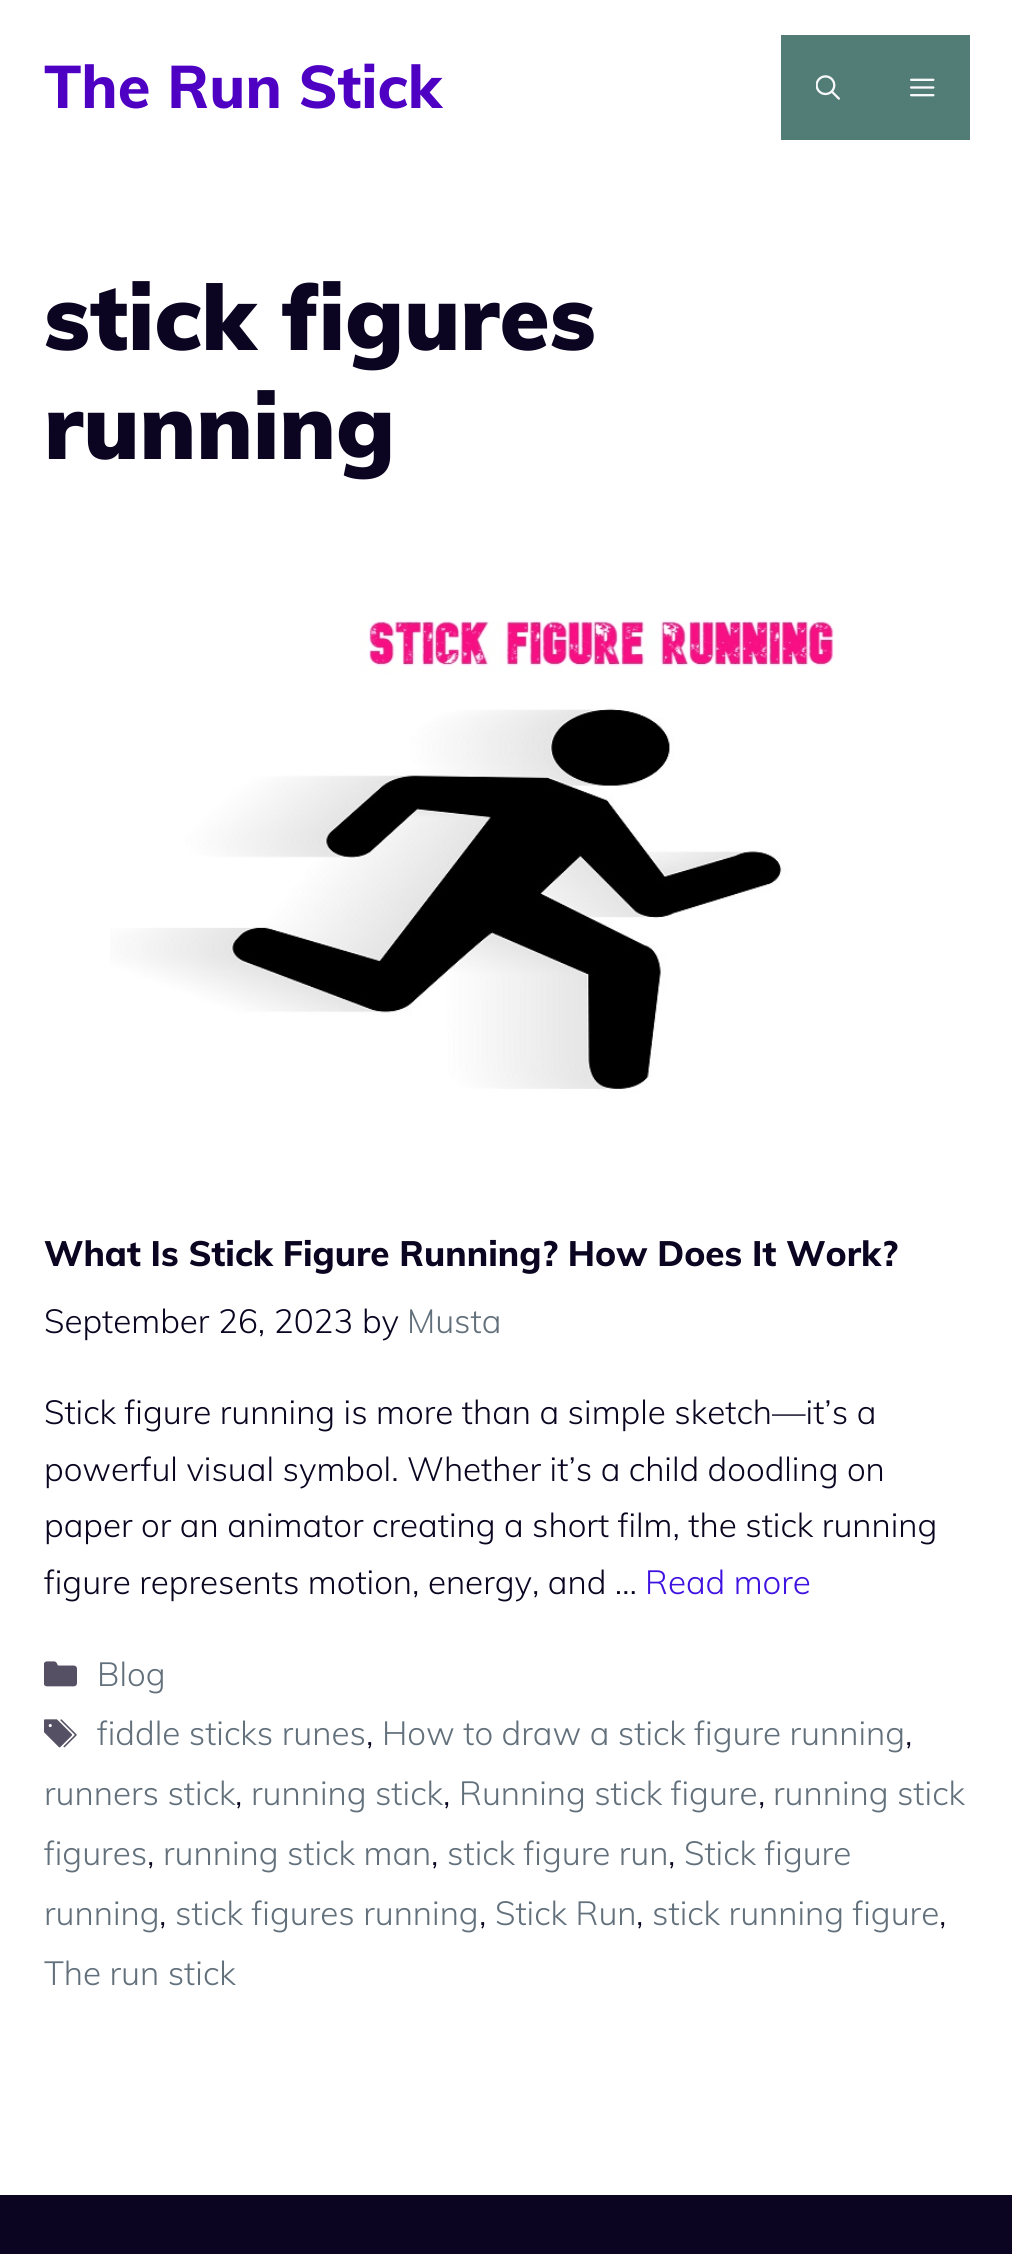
import math
import cairocffi as cairo

surface = cairo.ImageSurface(cairo.FORMAT_RGB24, 1012, 2254)
cr = cairo.Context(surface)
options = cairo.FontOptions()
options.set_hint_metrics(cairo.HINT_METRICS_OFF)
options.set_hint_style(cairo.HINT_STYLE_NONE)
cr.set_font_options(options)
cr.set_miter_limit(4)


def use_color(code):
    cr.set_source_rgb(*(v / 255 for v in bytes.fromhex(code[-6:])))


def picture(path, x, y, w, h):
    cr.save()
    cr.set_source_surface(cairo.ImageSurface.create_from_png(path), x, y)
    cr.rectangle(x, y, w, h)
    cr.fill()
    cr.restore()


use_color("#ffffff")
cr.paint()
cr.select_font_face("Muli ExtraBold")
cr.set_font_size(59.5)
use_color("#4e01c2")
cr.move_to(44, 108)
cr.show_text("The Run Stick")
use_color("#527d76")
cr.rectangle(781, 35, 189, 105)
cr.fill()
picture("img1.png", 816, 75, 24, 25)
picture("img2.png", 910, 78, 25, 19)
cr.select_font_face("Muli Black")
cr.set_font_size(91)
use_color("#0b0521")
cr.move_to(44, 350)
cr.show_text("stick figures")
cr.move_to(44, 459)
cr.show_text("running")
picture("img3.png", 110, 620, 724, 473)
cr.select_font_face("Muli ExtraBold")
cr.set_font_size(35)
cr.move_to(44, 1266)
cr.show_text("What Is Stick Figure Running? How Does It Work?")
cr.select_font_face("Muli Light")
cr.set_font_size(33.25)
cr.move_to(44, 1333)
cr.show_text("September 26, 2023 by")
use_color("#62707c")
cr.move_to(407, 1333)
cr.show_text("Musta")
use_color("#0b0521")
cr.move_to(44, 1424)
cr.show_text("Stick figure running is more than a simple sketch—it’s a")
cr.move_to(44, 1481)
cr.show_text("powerful visual symbol. Whether it’s a child doodling on")
cr.move_to(44, 1537)
cr.show_text("paper or an animator creating a short film, the stick running")
cr.move_to(44, 1594)
cr.show_text("figure represents motion, energy, and …")
use_color("#3e11e1")
cr.move_to(645, 1594)
cr.show_text("Read more")
picture("img4.png", 44, 1661, 33, 26)
use_color("#62707c")
cr.move_to(97, 1686)
cr.show_text("Blog")
picture("img5.png", 44, 1719, 33, 29)
cr.move_to(97, 1745)
cr.show_text("fiddle sticks runes")
use_color("#0b0521")
cr.move_to(366, 1745)
cr.show_text(",")
use_color("#62707c")
cr.move_to(382, 1745)
cr.show_text("How to draw a stick figure running")
use_color("#0b0521")
cr.move_to(905, 1745)
cr.show_text(",")
use_color("#62707c")
cr.move_to(44, 1805)
cr.show_text("runners stick")
use_color("#0b0521")
cr.move_to(235, 1805)
cr.show_text(",")
use_color("#62707c")
cr.move_to(251, 1805)
cr.show_text("running stick")
use_color("#0b0521")
cr.move_to(443, 1805)
cr.show_text(",")
use_color("#62707c")
cr.move_to(459, 1805)
cr.show_text("Running stick figure")
use_color("#0b0521")
cr.move_to(758, 1805)
cr.show_text(",")
use_color("#62707c")
cr.move_to(773, 1805)
cr.show_text("running stick")
cr.move_to(44, 1865)
cr.show_text("figures")
use_color("#0b0521")
cr.move_to(147, 1865)
cr.show_text(",")
use_color("#62707c")
cr.move_to(163, 1865)
cr.show_text("running stick man")
use_color("#0b0521")
cr.move_to(431, 1865)
cr.show_text(",")
use_color("#62707c")
cr.move_to(447, 1865)
cr.show_text("stick figure run")
use_color("#0b0521")
cr.move_to(668, 1865)
cr.show_text(",")
use_color("#62707c")
cr.move_to(684, 1865)
cr.show_text("Stick figure")
cr.move_to(44, 1925)
cr.show_text("running")
use_color("#0b0521")
cr.move_to(159, 1925)
cr.show_text(",")
use_color("#62707c")
cr.move_to(175, 1925)
cr.show_text("stick figures running")
use_color("#0b0521")
cr.move_to(479, 1925)
cr.show_text(",")
use_color("#62707c")
cr.move_to(495, 1925)
cr.show_text("Stick Run")
use_color("#0b0521")
cr.move_to(636, 1925)
cr.show_text(",")
use_color("#62707c")
cr.move_to(652, 1925)
cr.show_text("stick running figure")
use_color("#0b0521")
cr.move_to(939, 1925)
cr.show_text(",")
use_color("#62707c")
cr.move_to(44, 1985)
cr.show_text("The run stick")
use_color("#0b0521")
cr.rectangle(0, 2195, 1012, 59)
cr.fill()
surface.write_to_png("result.png")
